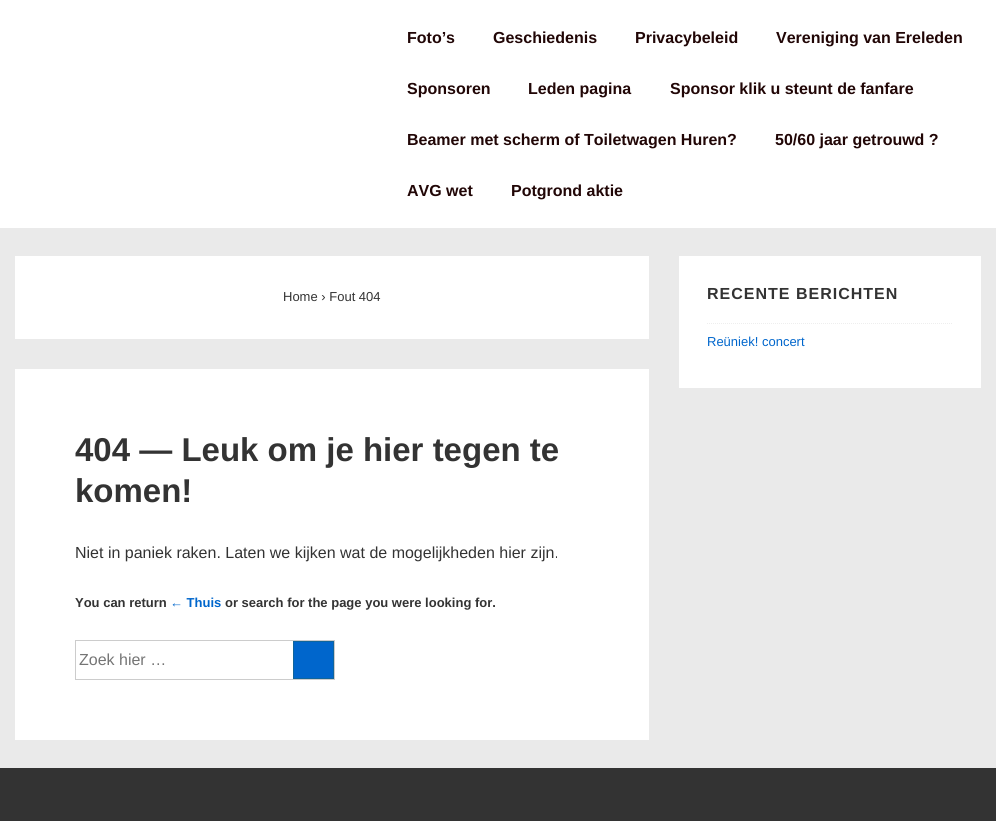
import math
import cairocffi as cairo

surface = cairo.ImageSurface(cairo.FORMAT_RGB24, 996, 821)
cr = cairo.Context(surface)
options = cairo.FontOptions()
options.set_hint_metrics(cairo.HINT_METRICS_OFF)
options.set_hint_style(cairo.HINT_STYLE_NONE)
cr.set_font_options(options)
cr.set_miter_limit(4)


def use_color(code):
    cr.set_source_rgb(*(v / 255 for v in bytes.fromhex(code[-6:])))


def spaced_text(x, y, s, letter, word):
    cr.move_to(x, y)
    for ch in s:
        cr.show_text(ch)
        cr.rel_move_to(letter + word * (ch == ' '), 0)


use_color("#eaeaea")
cr.paint()
use_color("#ffffff")
cr.rectangle(0, 0, 996, 228)
cr.fill()
cr.select_font_face("Liberation Sans", cairo.FONT_SLANT_NORMAL, cairo.FONT_WEIGHT_BOLD)
cr.set_font_size(16)
use_color("#210606")
cr.move_to(407, 43)
cr.show_text("Foto’s")
cr.move_to(493, 43)
cr.show_text("Geschiedenis")
cr.move_to(635, 43)
cr.show_text("Privacybeleid")
cr.move_to(776, 43)
cr.show_text("Vereniging van Ereleden")
cr.move_to(407, 94)
cr.show_text("Sponsoren")
cr.move_to(528, 94)
cr.show_text("Leden pagina")
cr.move_to(670, 94)
cr.show_text("Sponsor klik u steunt de fanfare")
cr.move_to(407, 145)
cr.show_text("Beamer met scherm of Toiletwagen Huren?")
cr.move_to(775, 145)
cr.show_text("50/60 jaar getrouwd ?")
cr.move_to(407, 196)
cr.show_text("AVG wet")
cr.move_to(511, 196)
cr.show_text("Potgrond aktie")
use_color("#ffffff")
cr.rectangle(15, 256, 634, 83)
cr.fill()
cr.select_font_face("Liberation Sans")
cr.set_font_size(13)
use_color("#333333")
cr.move_to(283, 301)
cr.show_text("Home › Fout 404")
use_color("#ffffff")
cr.rectangle(15, 369, 634, 371)
cr.fill()
cr.select_font_face("Liberation Sans", cairo.FONT_SLANT_NORMAL, cairo.FONT_WEIGHT_BOLD)
cr.set_font_size(33)
use_color("#333333")
cr.move_to(75, 461)
cr.show_text("404 — Leuk om je hier tegen te")
cr.move_to(75, 502)
cr.show_text("komen!")
cr.select_font_face("Liberation Sans")
cr.set_font_size(16)
cr.move_to(75, 558)
cr.show_text("Niet in paniek raken. Laten we kijken wat de mogelijkheden hier zijn.")
cr.select_font_face("Liberation Sans", cairo.FONT_SLANT_NORMAL, cairo.FONT_WEIGHT_BOLD)
cr.set_font_size(13)
cr.move_to(75, 607)
cr.show_text("You can return")
use_color("#0066cc")
cr.move_to(170, 607)
cr.show_text("← Thuis")
use_color("#333333")
cr.move_to(225, 607)
cr.show_text("or search for the page you were looking for.")
cr.rectangle(75.5, 640.5, 259, 39)
use_color("#cccccc")
cr.set_line_width(1)
cr.stroke()
cr.select_font_face("Liberation Sans")
cr.set_font_size(16)
use_color("#757575")
cr.move_to(79, 665)
cr.show_text("Zoek hier …")
use_color("#0066cc")
cr.rectangle(293.5, 641.5, 40, 37)
cr.fill_preserve()
use_color("#10659c")
cr.stroke()
use_color("#ffffff")
cr.rectangle(679, 256, 302, 132)
cr.fill()
cr.select_font_face("Liberation Sans", cairo.FONT_SLANT_NORMAL, cairo.FONT_WEIGHT_BOLD)
use_color("#333333")
spaced_text(707, 299, "RECENTE BERICHTEN", 1, 0)
cr.new_path()
cr.move_to(707, 323.5)
cr.line_to(953, 323.5)
use_color("#eeeeee")
cr.set_dash([1, 1])
cr.stroke()
cr.select_font_face("Liberation Sans")
cr.set_font_size(13)
use_color("#0066cc")
cr.move_to(707, 346)
cr.show_text("Reüniek! concert")
use_color("#333333")
cr.rectangle(0, 768, 996, 53)
cr.fill()
surface.write_to_png("result.png")
